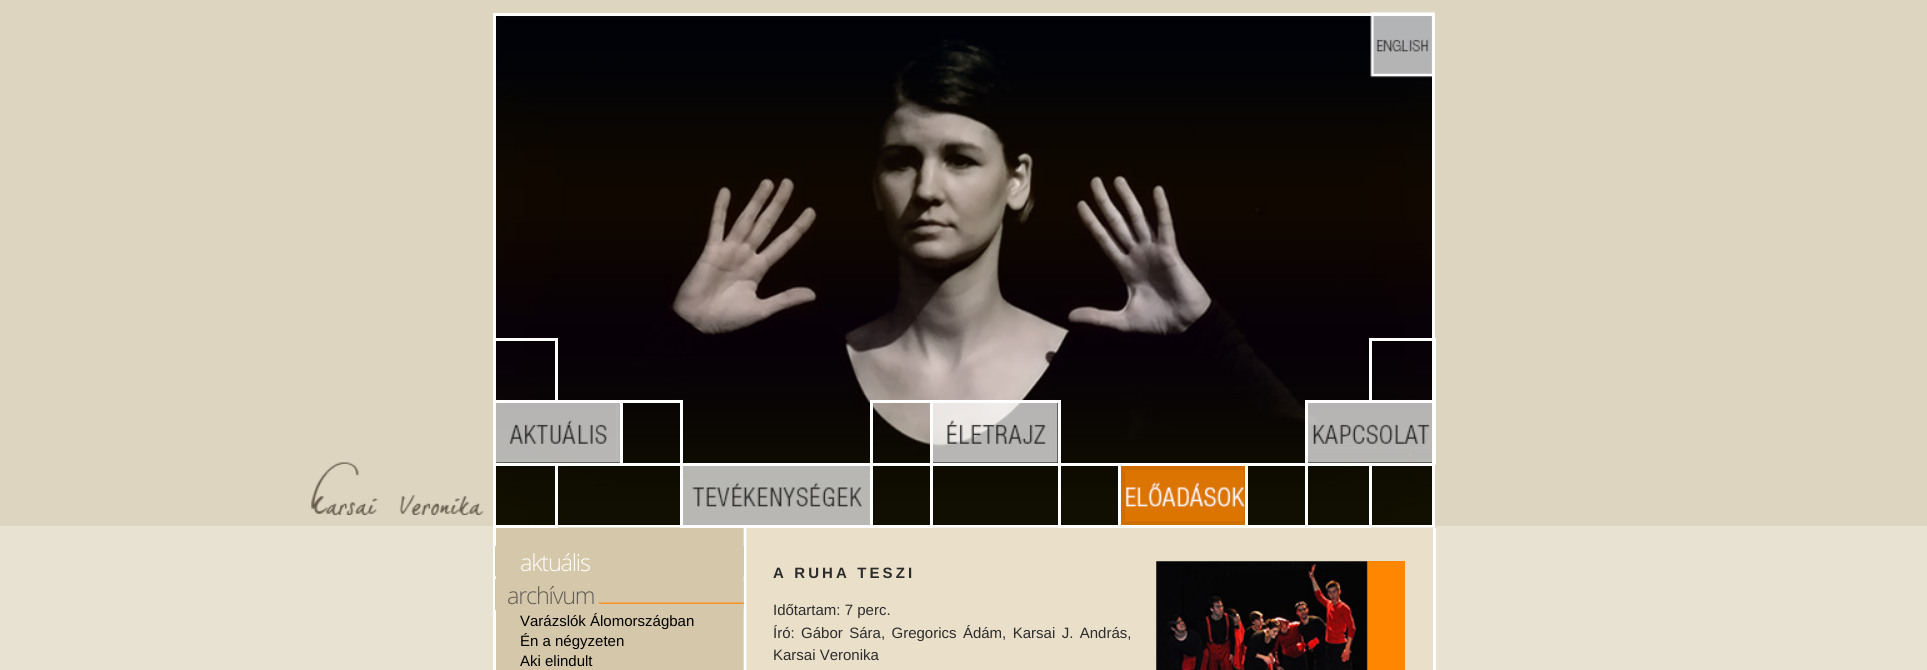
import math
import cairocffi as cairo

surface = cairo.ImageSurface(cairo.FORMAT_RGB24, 1927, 670)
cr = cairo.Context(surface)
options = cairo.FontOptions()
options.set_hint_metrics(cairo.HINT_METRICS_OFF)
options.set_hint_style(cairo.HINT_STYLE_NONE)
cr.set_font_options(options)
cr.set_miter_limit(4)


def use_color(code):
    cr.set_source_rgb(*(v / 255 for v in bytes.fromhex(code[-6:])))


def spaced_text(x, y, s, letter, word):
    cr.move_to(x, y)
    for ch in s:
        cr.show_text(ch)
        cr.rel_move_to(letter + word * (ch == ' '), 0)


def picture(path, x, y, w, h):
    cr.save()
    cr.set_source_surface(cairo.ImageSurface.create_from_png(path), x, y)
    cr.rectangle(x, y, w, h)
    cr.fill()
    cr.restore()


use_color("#e8e2d2")
cr.paint()
use_color("#ddd5c0")
cr.rectangle(0, 0, 1927, 526)
cr.fill()
picture("img1.png", 496, 16, 936, 509)
cr.rectangle(494.5, 14.5, 939, 512)
use_color("#ffffff")
cr.set_line_width(3)
cr.stroke()
picture("img2.png", 1370, 11, 65, 67)
picture("img3.png", 311, 462, 173, 53)
cr.rectangle(620, 400, 63, 3)
cr.fill()
cr.rectangle(870, 463, 63, 3)
cr.fill()
picture("img9.png", 496, 527, 939, 143)
cr.rectangle(930, 463, 3, 65)
cr.fill()
cr.rectangle(870, 527, 63, 1)
cr.fill()
cr.rectangle(870, 463, 3, 65)
cr.fill()
cr.rectangle(680, 463, 193, 3)
cr.fill()
cr.rectangle(680, 527, 193, 1)
cr.fill()
cr.rectangle(680, 463, 3, 65)
cr.fill()
cr.rectangle(680, 400, 3, 65)
cr.fill()
cr.rectangle(620, 463, 63, 3)
cr.fill()
cr.rectangle(620, 400, 3, 65)
cr.fill()
cr.rectangle(493, 400, 130, 3)
cr.fill()
cr.rectangle(555, 463, 3, 65)
cr.fill()
cr.rectangle(493, 463, 130, 3)
cr.fill()
picture("img4.png", 496, 403, 124, 60)
cr.rectangle(930, 400, 130, 3)
cr.fill()
cr.rectangle(1369, 463, 3, 65)
cr.fill()
cr.rectangle(1305, 527, 66, 1)
cr.fill()
cr.rectangle(1305, 463, 3, 65)
cr.fill()
cr.rectangle(1245, 463, 190, 3)
cr.fill()
cr.rectangle(1245, 527, 63, 1)
cr.fill()
cr.rectangle(1245, 463, 3, 65)
cr.fill()
cr.rectangle(1118, 463, 130, 3)
cr.fill()
cr.rectangle(1118, 527, 130, 1)
cr.fill()
cr.rectangle(1118, 463, 3, 65)
cr.fill()
cr.rectangle(1058, 463, 62, 3)
cr.fill()
cr.rectangle(1058, 527, 62, 1)
cr.fill()
cr.rectangle(1058, 463, 3, 65)
cr.fill()
cr.rectangle(1058, 400, 3, 65)
cr.fill()
cr.rectangle(930, 463, 130, 3)
cr.fill()
cr.rectangle(930, 400, 3, 65)
cr.fill()
cr.rectangle(870, 400, 63, 3)
cr.fill()
cr.rectangle(870, 400, 3, 65)
cr.fill()
picture("img5.png", 933, 403, 125, 60)
cr.rectangle(1305, 400, 130, 3)
cr.fill()
cr.rectangle(1435, 338, 1, 127)
cr.fill()
cr.rectangle(1305, 400, 3, 65)
cr.fill()
picture("img6.png", 1308, 403, 124, 60)
cr.rectangle(493, 338, 65, 3)
cr.fill()
cr.rectangle(555, 338, 3, 65)
cr.fill()
cr.rectangle(1369, 338, 66, 3)
cr.fill()
cr.rectangle(1369, 338, 3, 65)
cr.fill()
cr.rectangle(493, 527, 65, 1)
cr.fill()
picture("img7.png", 683, 466, 187, 59)
picture("img8.png", 1121, 466, 124, 59)
cr.rectangle(1433, 528, 3, 142)
cr.fill()
cr.rectangle(493, 528, 3, 142)
cr.fill()
picture("img10.png", 495, 576, 249, 1)
use_color("#d5c7aa")
cr.rectangle(495, 546, 249, 30)
cr.fill()
cr.select_font_face("Open Sans Light")
cr.set_font_size(23.5)
use_color("#ffffff")
spaced_text(520, 571, "aktuális", -1.25, 0)
picture("img11.png", 599, 581, 145, 28)
use_color("#5e5b56")
spaced_text(507, 604, "archívum", -1.25, 0)
use_color("#d5c7aa")
cr.rectangle(495, 579, 1, 31)
cr.fill()
cr.select_font_face("Liberation Sans")
cr.set_font_size(15)
use_color("#000000")
cr.move_to(520, 626)
cr.show_text("Varázslók Álomországban")
cr.move_to(520, 646)
cr.show_text("Én a négyzeten")
cr.move_to(520, 666)
cr.show_text("Aki elindult")
cr.select_font_face("Liberation Sans", cairo.FONT_SLANT_NORMAL, cairo.FONT_WEIGHT_BOLD)
use_color("#2c2c2c")
spaced_text(773, 578, "A RUHA TESZI", 3.1, 0)
picture("img12.png", 1156, 561, 212, 109)
use_color("#ff8600")
cr.rectangle(1368, 561, 37, 109)
cr.fill()
cr.select_font_face("Liberation Sans")
use_color("#2c2c2c")
cr.move_to(773, 615)
cr.show_text("Időtartam: 7 perc.")
spaced_text(773, 638, "Író: Gábor Sára, Gregorics Ádám, Karsai J. András,", 0, 2.25)
cr.move_to(773, 660)
cr.show_text("Karsai Veronika")
surface.write_to_png("result.png")
